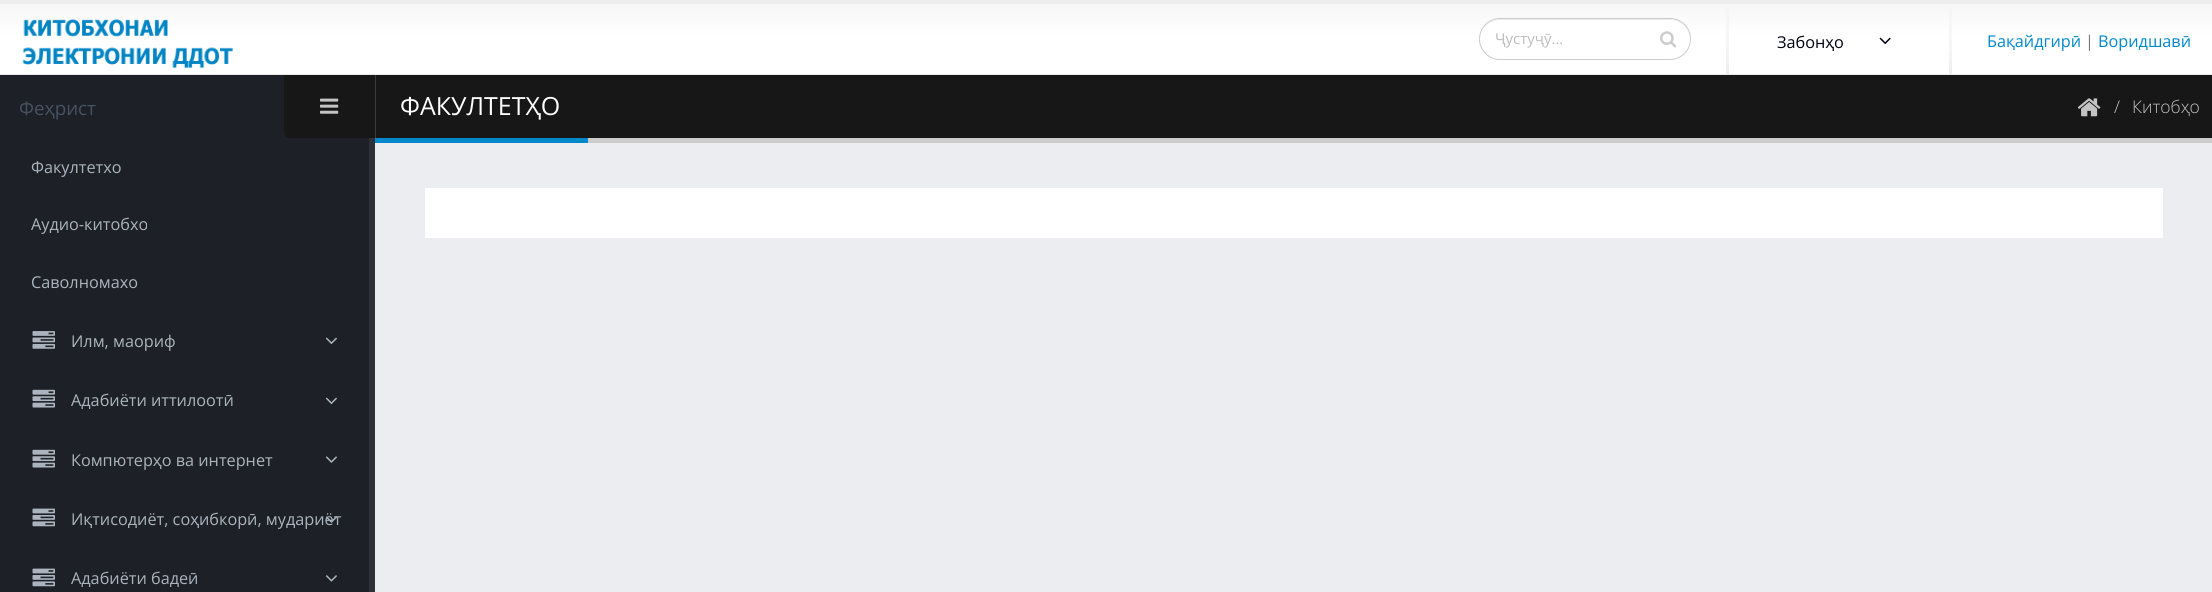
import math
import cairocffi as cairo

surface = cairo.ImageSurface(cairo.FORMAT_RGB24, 2212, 592)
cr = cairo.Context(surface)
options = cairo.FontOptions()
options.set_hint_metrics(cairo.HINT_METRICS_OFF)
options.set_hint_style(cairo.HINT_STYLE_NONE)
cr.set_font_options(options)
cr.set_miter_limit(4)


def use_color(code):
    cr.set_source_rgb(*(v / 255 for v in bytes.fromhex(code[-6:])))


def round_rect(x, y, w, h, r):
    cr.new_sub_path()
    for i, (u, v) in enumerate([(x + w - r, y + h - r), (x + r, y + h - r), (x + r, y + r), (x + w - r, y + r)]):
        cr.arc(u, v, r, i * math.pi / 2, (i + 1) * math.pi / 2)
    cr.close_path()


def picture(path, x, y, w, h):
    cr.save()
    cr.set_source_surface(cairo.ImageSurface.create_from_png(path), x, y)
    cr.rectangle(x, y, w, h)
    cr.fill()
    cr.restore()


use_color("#ecedf0")
cr.paint()
gradient = cairo.LinearGradient(1106, 3.7, 1106, 74)
gradient.add_color_stop_rgba(0, 0.965, 0.965, 0.965, 1)
gradient.add_color_stop_rgba(0.45, 1, 1, 1, 1)
cr.set_source(gradient)
cr.rectangle(0, 4, 2212, 70)
cr.fill()
use_color("#ededed")
cr.rectangle(0, 0, 2212, 4)
cr.fill()
use_color("#e9e9e6")
cr.rectangle(0, 74, 2212, 1)
cr.fill()
picture("img1.png", 22, 19, 211, 49)
use_color("#ffffff")
round_rect(1479, 18, 212, 42, 21)
cr.fill()
use_color("#ececec")
cr.new_path()
cr.move_to(1500, 20)
cr.line_to(1670, 20)
cr.curve_to(1681, 20, 1690, 29, 1690, 40)
cr.line_to(1690, 39)
cr.curve_to(1690, 28, 1681, 19, 1670, 19)
cr.line_to(1500, 19)
cr.curve_to(1489, 19, 1480, 28, 1480, 39)
cr.line_to(1480, 40)
cr.curve_to(1480, 29, 1489, 20, 1500, 20)
cr.close_path()
cr.fill()
round_rect(1479.5, 18.5, 211, 41, 20.5)
use_color("#cccccc")
cr.set_line_width(1)
cr.stroke()
cr.select_font_face("Open Sans")
cr.set_font_size(15)
use_color("#bdbdbd")
cr.move_to(1495, 44)
cr.show_text("Ҷустуҷӯ...")
picture("img2.png", 1660, 31, 17, 17)
gradient = cairo.LinearGradient(1728, 3.8, 1728, 74)
gradient.add_color_stop_rgba(0.6, 0.965, 0.965, 0.965, 1)
gradient.add_color_stop_rgba(1, 0.929, 0.929, 0.929, 1)
cr.set_source(gradient)
cr.rectangle(1726, 4, 3, 70)
cr.fill()
cr.set_font_size(16.25)
use_color("#000011")
cr.move_to(1777, 48)
cr.show_text("Забонҳо")
picture("img3.png", 1879, 37, 12, 8)
gradient = cairo.LinearGradient(1950, 3.8, 1950, 74)
gradient.add_color_stop_rgba(0.6, 0.965, 0.965, 0.965, 1)
gradient.add_color_stop_rgba(1, 0.929, 0.929, 0.929, 1)
cr.set_source(gradient)
cr.rectangle(1949, 4, 3, 70)
cr.fill()
use_color("#0088cc")
cr.move_to(1987, 47)
cr.show_text("Бақайдгирӣ")
use_color("#777777")
cr.move_to(2085, 47)
cr.show_text("|")
use_color("#0088cc")
cr.move_to(2098, 47)
cr.show_text("Воридшавӣ")
use_color("#1d2127")
cr.rectangle(0, 75, 369, 517)
cr.fill()
use_color("#2f3139")
cr.rectangle(369, 138, 6, 454)
cr.fill()
cr.set_font_size(18.75)
use_color("#465162")
cr.move_to(19, 115)
cr.show_text("Феҳрист")
use_color("#171717")
cr.new_path()
cr.move_to(284, 75)
cr.line_to(375, 75)
cr.line_to(375, 138)
cr.line_to(290, 138)
cr.curve_to(286.5, 138, 284, 135.5, 284, 132)
cr.close_path()
cr.fill()
picture("img4.png", 320, 98, 19, 16)
cr.set_font_size(16.25)
use_color("#abb4be")
cr.move_to(31, 173)
cr.show_text("Факултетхо")
cr.move_to(31, 230)
cr.show_text("Аудио-китобхо")
cr.move_to(31, 288)
cr.show_text("Саволномахо")
picture("img5.png", 32, 331, 23, 18)
cr.move_to(71, 347)
cr.show_text("Илм, маориф")
picture("img6.png", 325, 337, 12, 8)
picture("img7.png", 32, 389, 23, 19)
cr.move_to(71, 406)
cr.show_text("Адабиёти иттилоотӣ")
picture("img6.png", 325, 397, 12, 8)
picture("img7.png", 32, 449, 23, 19)
cr.move_to(71, 466)
cr.show_text("Компютерҳо ва интернет")
picture("img8.png", 325, 456, 12, 7)
picture("img9.png", 32, 508, 23, 19)
cr.move_to(71, 525)
cr.show_text("Иқтисодиёт, соҳибкорӣ, мудариёт")
picture("img10.png", 325, 516, 12, 7)
picture("img9.png", 32, 568, 23, 19)
cr.move_to(71, 584)
cr.show_text("Адабиёти бадеӣ")
picture("img11.png", 325, 575, 12, 7)
use_color("#cccccc")
cr.new_path()
cr.move_to(375, 138)
cr.line_to(375, 143)
cr.line_to(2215, 143)
cr.line_to(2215, 78)
cr.line_to(2212, 78)
cr.line_to(2212, 138)
cr.close_path()
cr.fill()
use_color("#171717")
cr.rectangle(376, 75, 1836, 63)
cr.fill()
use_color("#3a3a3a")
cr.rectangle(375, 75, 1, 63)
cr.fill()
use_color("#0088cc")
cr.rectangle(375, 138, 213, 5)
cr.fill()
cr.set_font_size(25)
use_color("#ffffff")
cr.move_to(400, 115)
cr.show_text("ФАКУЛТЕТҲО")
picture("img12.png", 2077, 98, 24, 19)
cr.select_font_face("Open Sans Light")
cr.set_font_size(17.5)
use_color("#c3c3c3")
cr.move_to(2114, 113)
cr.show_text("/")
cr.move_to(2132, 113)
cr.show_text("Китобҳо")
use_color("#ffffff")
cr.rectangle(425, 188, 1738, 50)
cr.fill()
surface.write_to_png("result.png")
